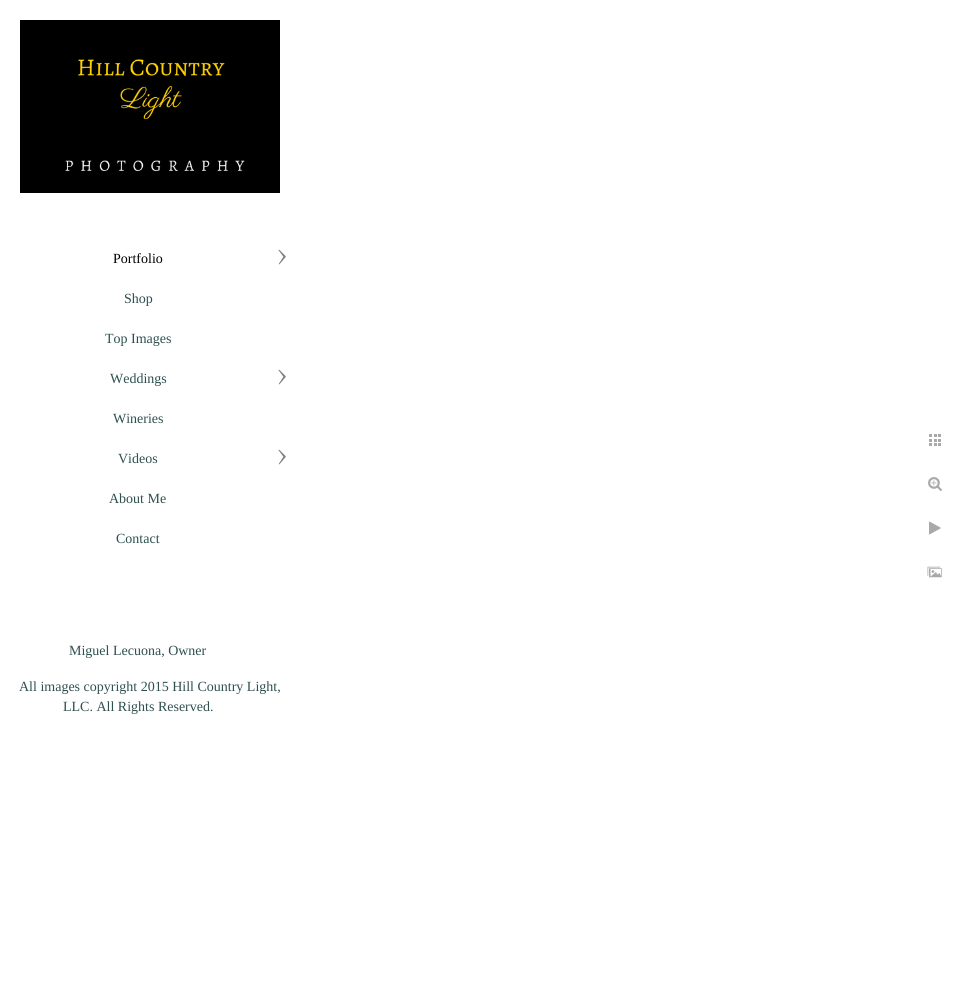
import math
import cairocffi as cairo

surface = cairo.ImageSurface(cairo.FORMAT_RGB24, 962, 992)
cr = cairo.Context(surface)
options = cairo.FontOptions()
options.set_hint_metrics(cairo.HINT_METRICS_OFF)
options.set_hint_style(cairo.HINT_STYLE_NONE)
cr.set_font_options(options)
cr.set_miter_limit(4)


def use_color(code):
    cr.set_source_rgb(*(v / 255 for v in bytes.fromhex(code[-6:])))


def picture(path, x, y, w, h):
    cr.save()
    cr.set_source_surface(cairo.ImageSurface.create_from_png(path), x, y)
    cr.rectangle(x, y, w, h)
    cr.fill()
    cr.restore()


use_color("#ffffff")
cr.paint()
picture("img1.png", 20, 20, 260, 173)
cr.select_font_face("Liberation Serif")
cr.set_font_size(14)
use_color("#000000")
cr.move_to(113, 263)
cr.show_text("Portfolio")
picture("img2.png", 278, 249, 8, 16)
use_color("#2f4f4f")
cr.move_to(124, 303)
cr.show_text("Shop")
cr.move_to(105, 343)
cr.show_text("Top Images")
cr.move_to(110, 383)
cr.show_text("Weddings")
picture("img2.png", 278, 369, 8, 16)
cr.move_to(113, 423)
cr.show_text("Wineries")
cr.move_to(118, 463)
cr.show_text("Videos")
picture("img2.png", 278, 449, 8, 16)
cr.move_to(109, 503)
cr.show_text("About Me")
cr.move_to(116, 543)
cr.show_text("Contact")
cr.move_to(69, 655)
cr.show_text("Miguel Lecuona, Owner")
cr.move_to(19, 691)
cr.show_text("All images copyright 2015 Hill Country Light,")
cr.move_to(63, 711)
cr.show_text("LLC. All Rights Reserved.")
picture("img3.png", 929, 434, 12, 12)
picture("img4.png", 928, 477, 14, 14)
picture("img5.png", 929, 521, 12, 14)
picture("img6.png", 927, 566, 15, 12)
surface.write_to_png("result.png")
